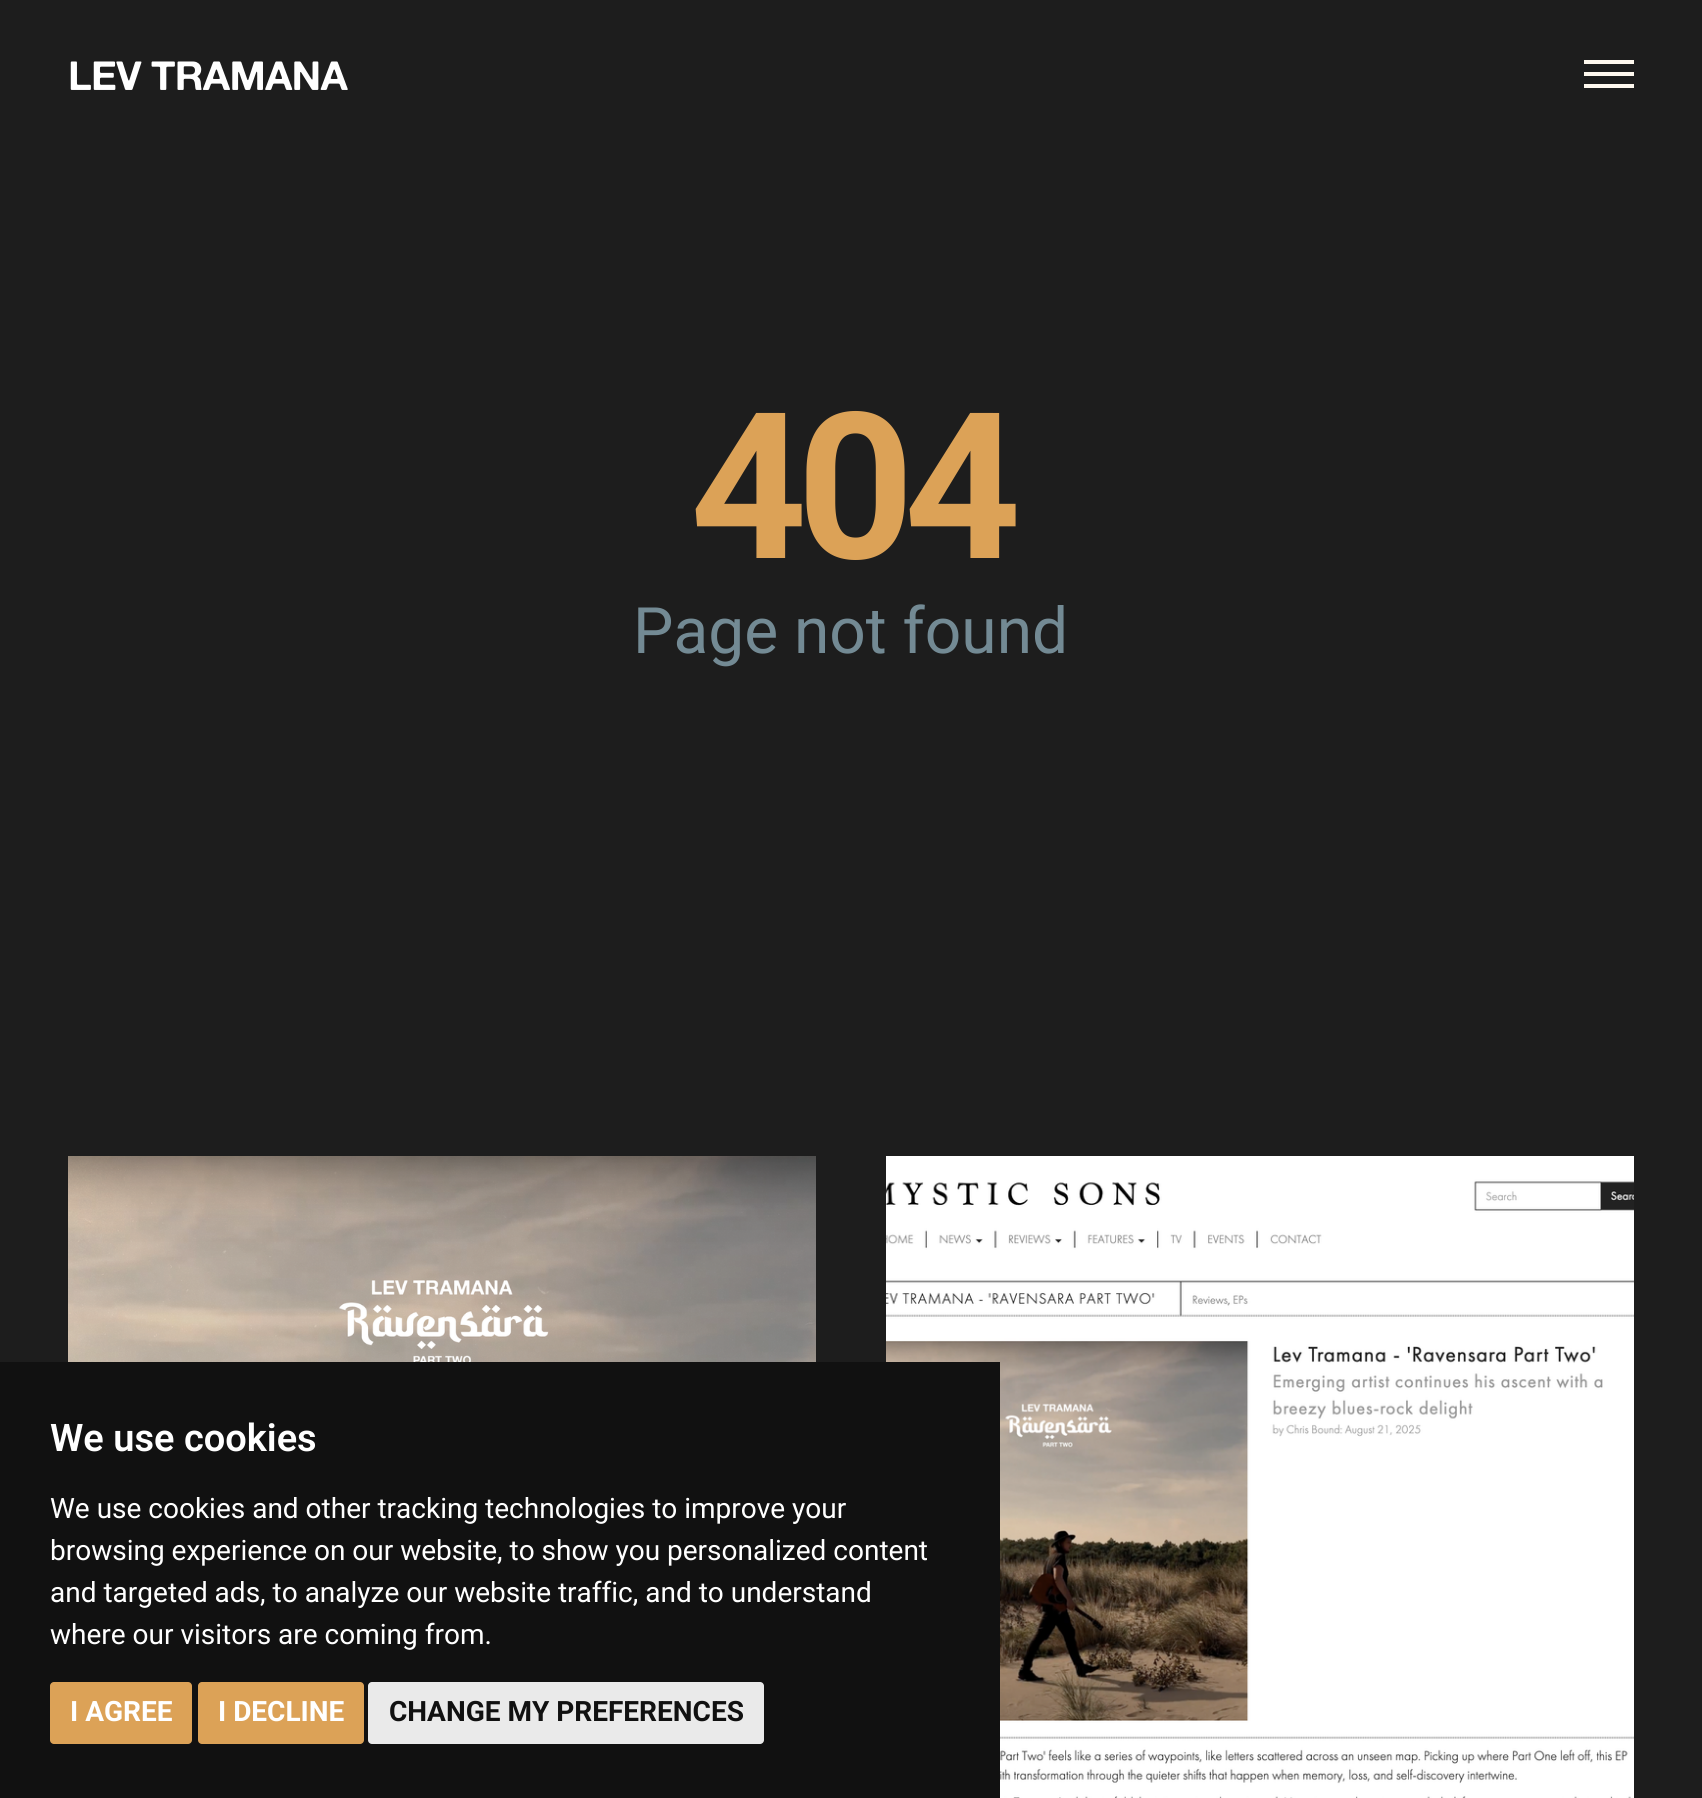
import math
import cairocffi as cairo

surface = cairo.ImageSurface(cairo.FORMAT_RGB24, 1702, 1798)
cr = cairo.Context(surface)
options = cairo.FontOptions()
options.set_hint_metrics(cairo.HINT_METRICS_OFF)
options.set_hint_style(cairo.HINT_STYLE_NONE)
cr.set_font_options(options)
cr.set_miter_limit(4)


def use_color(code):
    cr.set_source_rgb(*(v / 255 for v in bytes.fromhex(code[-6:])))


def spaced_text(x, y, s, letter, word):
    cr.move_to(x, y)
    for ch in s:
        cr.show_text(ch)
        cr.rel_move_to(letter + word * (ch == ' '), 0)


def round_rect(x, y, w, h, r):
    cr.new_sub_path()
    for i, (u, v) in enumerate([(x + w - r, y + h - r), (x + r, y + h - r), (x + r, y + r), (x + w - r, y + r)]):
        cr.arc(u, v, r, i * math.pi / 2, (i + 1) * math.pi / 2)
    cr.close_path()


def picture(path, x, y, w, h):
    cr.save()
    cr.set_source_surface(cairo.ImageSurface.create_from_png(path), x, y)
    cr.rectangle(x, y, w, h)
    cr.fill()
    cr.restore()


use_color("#1d1d1d")
cr.paint()
cr.select_font_face("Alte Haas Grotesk", cairo.FONT_SLANT_NORMAL, cairo.FONT_WEIGHT_BOLD)
cr.set_font_size(40)
use_color("#ffffff")
spaced_text(68, 90, "LEV TRAMANA", -0.75, 0)
use_color("#fef8ee")
cr.rectangle(1584, 60, 50, 4)
cr.fill()
cr.rectangle(1584, 84, 50, 4)
cr.fill()
cr.rectangle(1584, 72, 50, 4)
cr.fill()
cr.select_font_face("Roboto", cairo.FONT_SLANT_NORMAL, cairo.FONT_WEIGHT_BOLD)
cr.set_font_size(204)
use_color("#dca257")
spaced_text(690, 558, "404", -10, 0)
cr.select_font_face("Roboto")
cr.set_font_size(64)
use_color("#738a94")
cr.move_to(633, 653)
cr.show_text("Page not found")
picture("img1.png", 68, 1156, 748, 206)
picture("img2.png", 886, 1156, 748, 642)
use_color("#111111")
cr.rectangle(0, 1362, 1000, 436)
cr.fill()
cr.select_font_face("Roboto SemiBold")
cr.set_font_size(38)
use_color("#ffffff")
cr.move_to(50, 1451)
cr.show_text("We use cookies")
cr.select_font_face("Roboto")
cr.set_font_size(28)
cr.move_to(50, 1518)
cr.show_text("We use cookies and other tracking technologies to improve your")
cr.move_to(50, 1560)
cr.show_text("browsing experience on our website, to show you personalized content")
cr.move_to(50, 1602)
cr.show_text("and targeted ads, to analyze our website traffic, and to understand")
cr.move_to(50, 1644)
cr.show_text("where our visitors are coming from.")
use_color("#dca257")
round_rect(50, 1682, 142, 62, 4)
cr.fill()
cr.select_font_face("Roboto", cairo.FONT_SLANT_NORMAL, cairo.FONT_WEIGHT_BOLD)
use_color("#ffffff")
cr.move_to(70, 1721)
cr.show_text("I AGREE")
use_color("#dca257")
round_rect(198, 1682, 166, 62, 4)
cr.fill()
use_color("#ffffff")
cr.move_to(218, 1721)
cr.show_text("I DECLINE")
use_color("#eaeaea")
round_rect(368, 1682, 396, 62, 4)
cr.fill()
use_color("#111111")
cr.move_to(389, 1721)
cr.show_text("CHANGE MY PREFERENCES")
surface.write_to_png("result.png")
